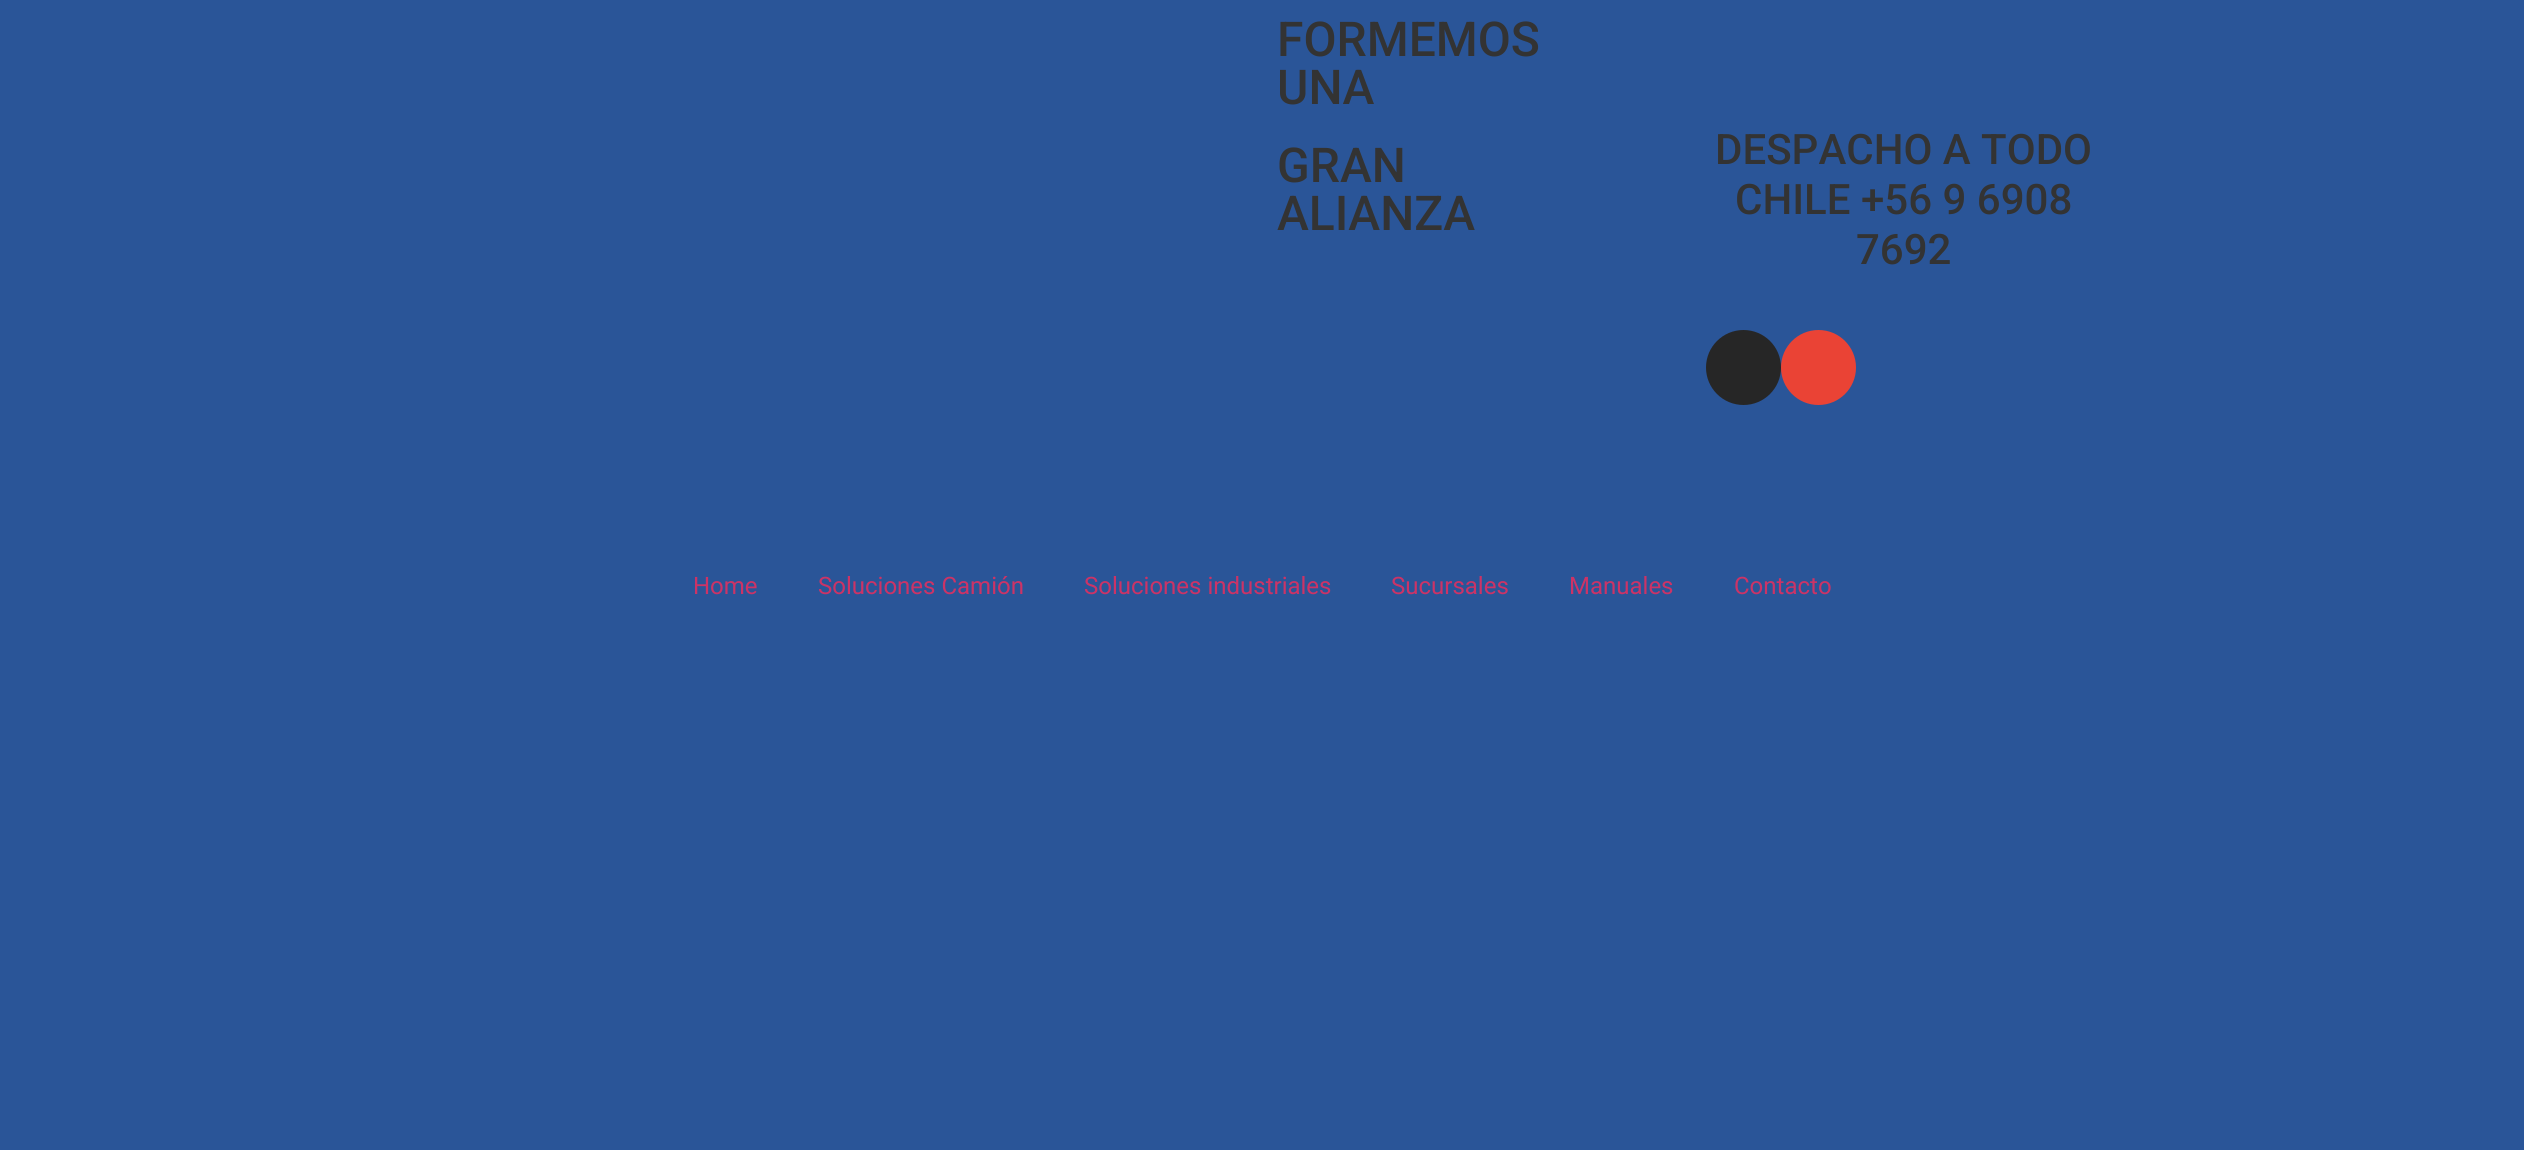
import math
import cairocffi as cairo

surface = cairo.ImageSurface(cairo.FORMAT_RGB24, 2524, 1150)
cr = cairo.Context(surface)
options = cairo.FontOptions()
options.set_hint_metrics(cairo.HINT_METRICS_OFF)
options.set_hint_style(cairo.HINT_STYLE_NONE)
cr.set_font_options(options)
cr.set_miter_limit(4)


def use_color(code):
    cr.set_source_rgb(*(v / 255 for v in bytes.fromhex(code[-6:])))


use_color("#2a5598")
cr.paint()
cr.select_font_face("Roboto Medium")
cr.set_font_size(48)
use_color("#333333")
cr.move_to(1277, 56)
cr.show_text("FORMEMOS")
cr.move_to(1277, 104)
cr.show_text("UNA")
cr.move_to(1277, 182)
cr.show_text("GRAN")
cr.move_to(1277, 230)
cr.show_text("ALIANZA")
cr.set_font_size(42)
cr.move_to(1715, 164)
cr.show_text("DESPACHO A TODO")
cr.move_to(1735, 214)
cr.show_text("CHILE +56 9 6908")
cr.move_to(1856, 264)
cr.show_text("7692")
use_color("#262626")
cr.new_path()
cr.arc(1743.5, 367.5, 37.5, 0, 2 * math.pi)
cr.fill()
use_color("#ea4335")
cr.arc(1818.5, 367.5, 37.5, 0, 2 * math.pi)
cr.fill()
cr.select_font_face("Roboto")
cr.set_font_size(24)
use_color("#cc3366")
cr.move_to(693, 594)
cr.show_text("Home")
cr.move_to(818, 594)
cr.show_text("Soluciones Camión")
cr.move_to(1084, 594)
cr.show_text("Soluciones industriales")
cr.move_to(1391, 594)
cr.show_text("Sucursales")
cr.move_to(1569, 594)
cr.show_text("Manuales")
cr.move_to(1734, 594)
cr.show_text("Contacto")
surface.write_to_png("result.png")
